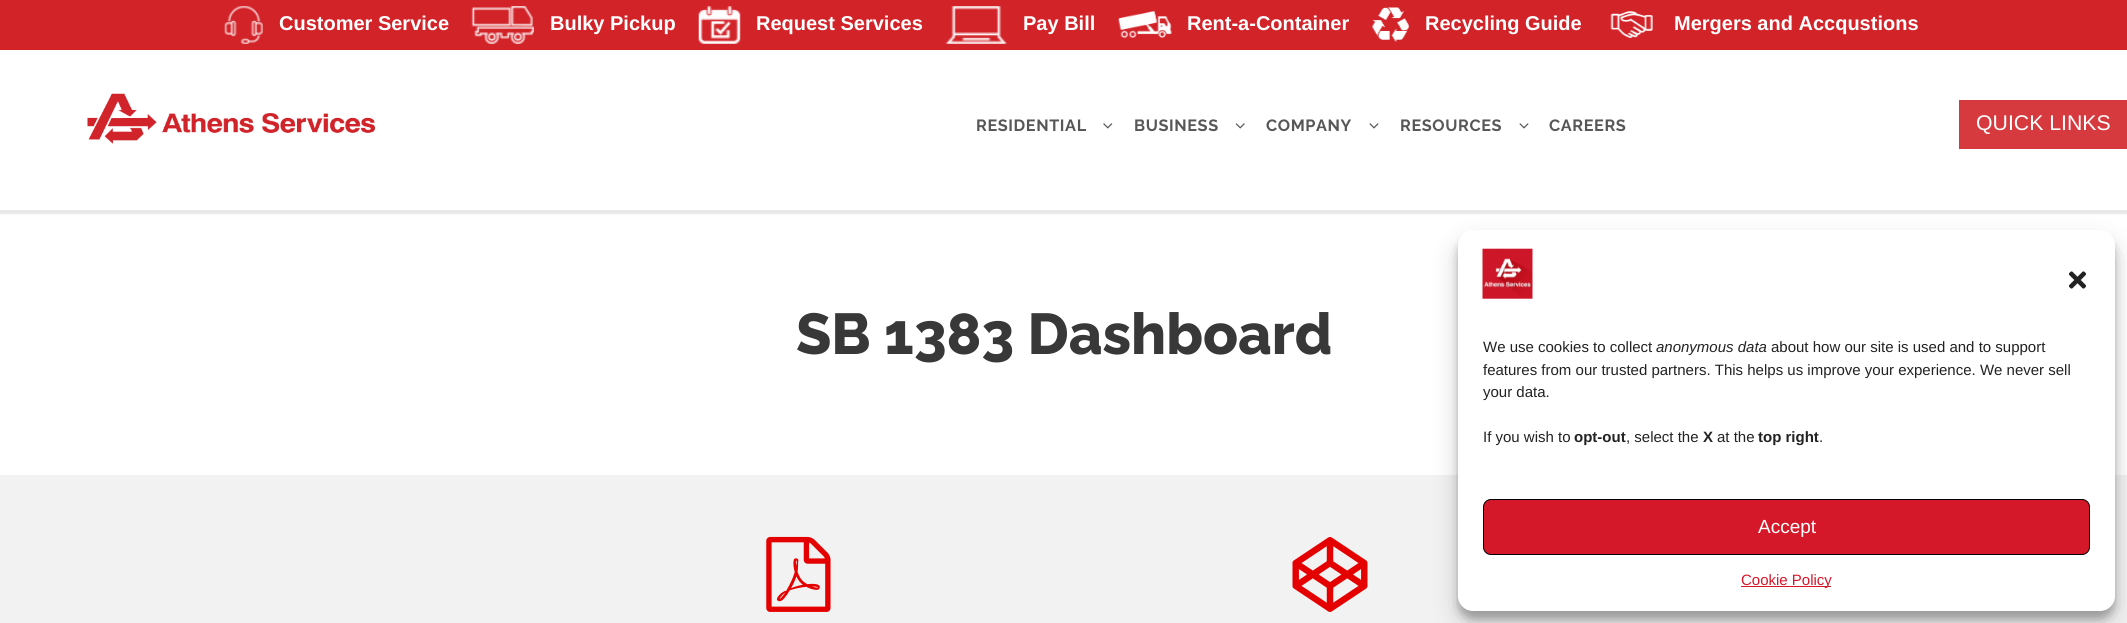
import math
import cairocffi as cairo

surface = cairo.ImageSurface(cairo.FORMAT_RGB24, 2127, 623)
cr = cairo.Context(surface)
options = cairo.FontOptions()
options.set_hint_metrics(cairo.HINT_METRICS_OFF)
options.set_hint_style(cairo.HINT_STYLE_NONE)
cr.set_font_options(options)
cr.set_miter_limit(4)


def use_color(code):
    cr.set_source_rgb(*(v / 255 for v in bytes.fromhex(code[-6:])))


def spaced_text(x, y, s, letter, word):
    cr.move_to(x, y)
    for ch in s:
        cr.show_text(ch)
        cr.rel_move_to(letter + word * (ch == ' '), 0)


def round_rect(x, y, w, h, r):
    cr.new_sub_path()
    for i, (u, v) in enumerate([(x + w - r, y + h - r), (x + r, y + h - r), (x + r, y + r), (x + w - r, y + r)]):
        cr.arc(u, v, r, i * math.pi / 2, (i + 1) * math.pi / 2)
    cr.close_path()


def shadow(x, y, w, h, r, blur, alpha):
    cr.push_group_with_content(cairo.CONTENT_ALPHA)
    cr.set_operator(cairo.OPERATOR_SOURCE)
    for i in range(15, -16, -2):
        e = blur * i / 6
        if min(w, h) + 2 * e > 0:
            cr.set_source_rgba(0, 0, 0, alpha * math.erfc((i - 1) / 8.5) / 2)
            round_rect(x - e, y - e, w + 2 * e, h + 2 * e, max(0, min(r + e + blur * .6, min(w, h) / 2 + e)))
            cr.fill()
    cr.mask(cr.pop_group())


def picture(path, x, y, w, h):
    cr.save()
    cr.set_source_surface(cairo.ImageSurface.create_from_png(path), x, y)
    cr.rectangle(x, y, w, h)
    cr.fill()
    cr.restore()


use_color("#ffffff")
cr.paint()
cr.save()
cr.rectangle(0, 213, 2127, 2)
cr.clip()
use_color("#000000")
shadow(0, 51, 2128, 163, 0, 1, 0.1)
cr.restore()
use_color("#d22329")
cr.rectangle(0, 0, 2127, 50)
cr.fill()
picture("img1.png", 224, 6, 39, 38)
cr.select_font_face("Liberation Sans", cairo.FONT_SLANT_NORMAL, cairo.FONT_WEIGHT_BOLD)
cr.set_font_size(20)
use_color("#ffffff")
cr.move_to(279, 30)
cr.show_text("Customer Service")
picture("img2.png", 471, 6, 63, 38)
cr.move_to(550, 30)
cr.show_text("Bulky Pickup")
picture("img3.png", 698, 6, 43, 38)
cr.move_to(756, 30)
cr.show_text("Request Services")
picture("img4.png", 945, 6, 62, 38)
cr.move_to(1023, 30)
cr.show_text("Pay Bill")
picture("img5.png", 1118, 11, 54, 27)
cr.move_to(1187, 30)
cr.show_text("Rent-a-Container")
picture("img6.png", 1371, 7, 38, 36)
cr.move_to(1425, 30)
cr.show_text("Recycling Guide")
picture("img7.png", 1610, 11, 43, 27)
cr.move_to(1674, 30)
cr.show_text("Mergers and Accqustions")
use_color("#e8e8e8")
cr.rectangle(0, 210, 2127, 3)
cr.fill()
picture("img8.png", 87, 93, 288, 51)
cr.select_font_face("Raleway", cairo.FONT_SLANT_NORMAL, cairo.FONT_WEIGHT_BOLD)
cr.set_font_size(16.25)
use_color("#575757")
spaced_text(976, 131, "RESIDENTIAL", 0.6, 0)
picture("img9.png", 1103, 123, 10, 6)
spaced_text(1134, 131, "BUSINESS", 0.6, 0)
picture("img10.png", 1235, 123, 10, 6)
spaced_text(1266, 131, "COMPANY", 0.6, 0)
picture("img11.png", 1369, 123, 10, 6)
spaced_text(1400, 131, "RESOURCES", 0.6, 0)
picture("img11.png", 1519, 123, 10, 6)
spaced_text(1549, 131, "CAREERS", 0.6, 0)
cr.select_font_face("Raleway ExtraBold")
cr.set_font_size(57.5)
use_color("#383838")
cr.move_to(796, 354)
cr.show_text("SB 1383 Dashboard")
use_color("#f2f2f2")
cr.rectangle(0, 475, 2127, 148)
cr.fill()
picture("img12.png", 766, 536, 65, 76)
picture("img13.png", 1292, 537, 76, 75)
use_color("#d73a3e")
cr.rectangle(1959, 100, 168, 49)
cr.fill()
cr.select_font_face("Liberation Sans")
cr.set_font_size(21.25)
use_color("#ffffff")
cr.move_to(1976, 130)
cr.show_text("QUICK LINKS")
use_color("#000000")
shadow(1458, 238, 657, 381, 15, 4, 0.23)
shadow(1458, 243, 657, 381, 15, 12.5, 0.19)
use_color("#ffffff")
round_rect(1458, 230, 657, 381, 15)
cr.fill()
picture("img14.png", 1482, 248, 51, 51)
picture("img15.png", 2068, 271, 19, 18)
cr.set_font_size(15)
use_color("#222222")
cr.move_to(1483, 352)
cr.show_text("We use cookies to collect")
cr.select_font_face("Liberation Sans", cairo.FONT_SLANT_ITALIC)
cr.move_to(1656, 352)
cr.show_text("anonymous data")
cr.select_font_face("Liberation Sans")
cr.move_to(1771, 352)
cr.show_text("about how our site is used and to support")
cr.move_to(1483, 375)
cr.show_text("features from our trusted partners. This helps us improve your experience. We never sell")
cr.move_to(1483, 397)
cr.show_text("your data.")
cr.move_to(1483, 442)
cr.show_text("If you wish to")
cr.select_font_face("Liberation Sans", cairo.FONT_SLANT_NORMAL, cairo.FONT_WEIGHT_BOLD)
cr.move_to(1574, 442)
cr.show_text("opt-out")
cr.select_font_face("Liberation Sans")
cr.move_to(1626, 442)
cr.show_text(", select the")
cr.select_font_face("Liberation Sans", cairo.FONT_SLANT_NORMAL, cairo.FONT_WEIGHT_BOLD)
cr.move_to(1703, 442)
cr.show_text("X")
cr.select_font_face("Liberation Sans")
cr.move_to(1717, 442)
cr.show_text("at the")
cr.select_font_face("Liberation Sans", cairo.FONT_SLANT_NORMAL, cairo.FONT_WEIGHT_BOLD)
cr.move_to(1758, 442)
cr.show_text("top right")
cr.select_font_face("Liberation Sans")
cr.move_to(1819, 442)
cr.show_text(".")
use_color("#d5172a")
round_rect(1483.5, 499.5, 606, 55, 7.5)
cr.fill_preserve()
use_color("#000000")
cr.set_line_width(1)
cr.stroke()
cr.set_font_size(19)
use_color("#ffffff")
cr.move_to(1758, 533)
cr.show_text("Accept")
use_color("#d5172a")
cr.rectangle(1741, 586, 90, 1)
cr.fill()
cr.set_font_size(15)
cr.move_to(1741, 585)
cr.show_text("Cookie Policy")
surface.write_to_png("result.png")
